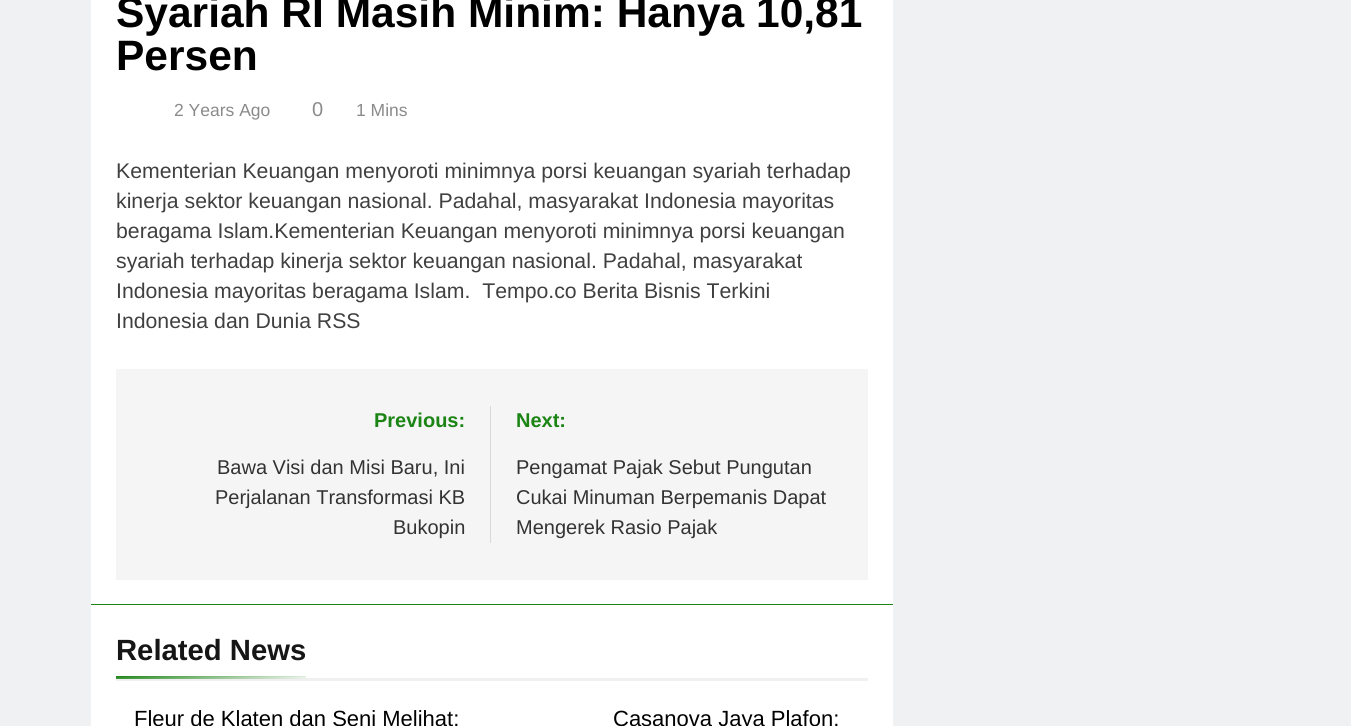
import math
import cairocffi as cairo

surface = cairo.ImageSurface(cairo.FORMAT_RGB24, 1351, 726)
cr = cairo.Context(surface)
options = cairo.FontOptions()
options.set_hint_metrics(cairo.HINT_METRICS_OFF)
options.set_hint_style(cairo.HINT_STYLE_NONE)
cr.set_font_options(options)
cr.set_miter_limit(4)


def use_color(code):
    cr.set_source_rgb(*(v / 255 for v in bytes.fromhex(code[-6:])))


use_color("#f0f1f2")
cr.paint()
use_color("#ffffff")
cr.rectangle(91, 0, 802, 604)
cr.fill()
cr.select_font_face("Liberation Sans", cairo.FONT_SLANT_NORMAL, cairo.FONT_WEIGHT_BOLD)
cr.set_font_size(42.5)
use_color("#000000")
cr.move_to(116, 27)
cr.show_text("Syariah RI Masih Minim: Hanya 10,81")
cr.move_to(116, 70)
cr.show_text("Persen")
cr.select_font_face("Liberation Sans")
cr.set_font_size(17.5)
use_color("#8a8a8c")
cr.move_to(174, 116)
cr.show_text("2 Years Ago")
cr.set_font_size(20)
cr.move_to(312, 116)
cr.show_text("0")
cr.set_font_size(17.5)
cr.move_to(356, 116)
cr.show_text("1 Mins")
cr.set_font_size(21.25)
use_color("#404040")
cr.move_to(116, 178)
cr.show_text("Kementerian Keuangan menyoroti minimnya porsi keuangan syariah terhadap")
cr.move_to(116, 208)
cr.show_text("kinerja sektor keuangan nasional. Padahal, masyarakat Indonesia mayoritas")
cr.move_to(116, 238)
cr.show_text("beragama Islam.Kementerian Keuangan menyoroti minimnya porsi keuangan")
cr.move_to(116, 268)
cr.show_text("syariah terhadap kinerja sektor keuangan nasional. Padahal, masyarakat")
cr.move_to(116, 298)
cr.show_text("Indonesia mayoritas beragama Islam.  Tempo.co Berita Bisnis Terkini")
cr.move_to(116, 328)
cr.show_text("Indonesia dan Dunia RSS")
use_color("#f5f5f5")
cr.rectangle(116, 369, 752, 211)
cr.fill()
use_color("#d9d9d9")
cr.rectangle(490, 406, 1, 137)
cr.fill()
cr.select_font_face("Liberation Sans", cairo.FONT_SLANT_NORMAL, cairo.FONT_WEIGHT_BOLD)
cr.set_font_size(20)
use_color("#1b8415")
cr.move_to(374, 427)
cr.show_text("Previous:")
cr.select_font_face("Liberation Sans")
use_color("#333333")
cr.move_to(217, 474)
cr.show_text("Bawa Visi dan Misi Baru, Ini")
cr.move_to(215, 504)
cr.show_text("Perjalanan Transformasi KB")
cr.move_to(393, 534)
cr.show_text("Bukopin")
cr.select_font_face("Liberation Sans", cairo.FONT_SLANT_NORMAL, cairo.FONT_WEIGHT_BOLD)
use_color("#1b8415")
cr.move_to(516, 427)
cr.show_text("Next:")
cr.select_font_face("Liberation Sans")
use_color("#333333")
cr.move_to(516, 474)
cr.show_text("Pengamat Pajak Sebut Pungutan")
cr.move_to(516, 504)
cr.show_text("Cukai Minuman Berpemanis Dapat")
cr.move_to(516, 534)
cr.show_text("Mengerek Rasio Pajak")
use_color("#ffffff")
cr.rectangle(91, 605, 802, 121)
cr.fill()
use_color("#1b8415")
cr.rectangle(91, 604, 802, 1)
cr.fill()
use_color("#f0f0f0")
cr.rectangle(116, 678, 752, 3)
cr.fill()
cr.select_font_face("Liberation Sans", cairo.FONT_SLANT_NORMAL, cairo.FONT_WEIGHT_BOLD)
cr.set_font_size(29.25)
use_color("#161616")
cr.move_to(116, 660)
cr.show_text("Related News")
gradient = cairo.LinearGradient(211, 670, 212, 685)
gradient.add_color_stop_rgba(0, 0.106, 0.518, 0.082, 1)
gradient.add_color_stop_rgba(1, 0.106, 0.518, 0.082, 0)
cr.set_source(gradient)
cr.rectangle(116, 676, 190, 3)
cr.fill()
cr.select_font_face("Liberation Sans")
cr.set_font_size(22)
use_color("#000000")
cr.move_to(134, 726)
cr.show_text("Fleur de Klaten dan Seni Melihat:")
cr.move_to(613, 726)
cr.show_text("Casanova Jaya Plafon:")
surface.write_to_png("result.png")
